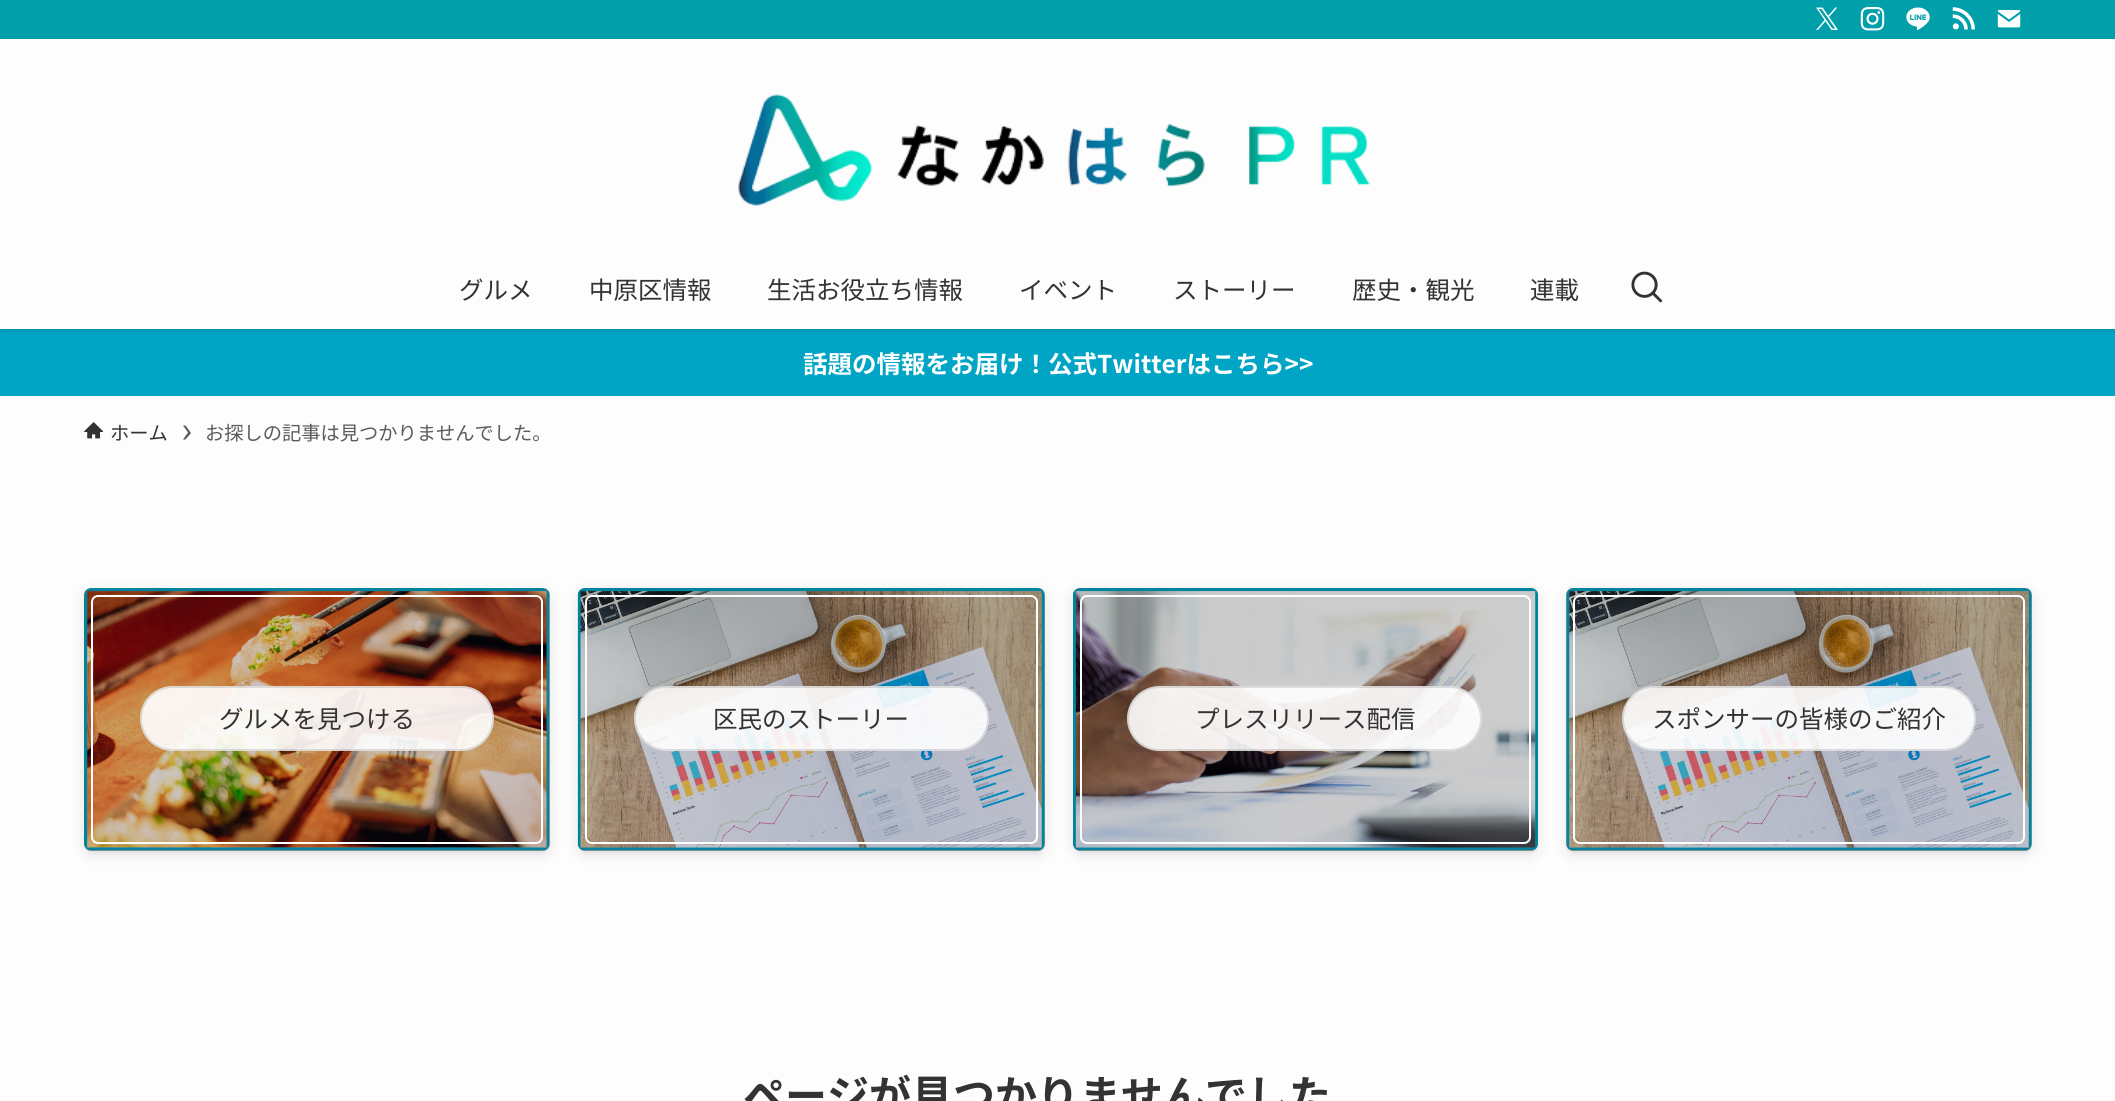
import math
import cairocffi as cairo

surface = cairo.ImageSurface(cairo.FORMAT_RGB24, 2115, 1101)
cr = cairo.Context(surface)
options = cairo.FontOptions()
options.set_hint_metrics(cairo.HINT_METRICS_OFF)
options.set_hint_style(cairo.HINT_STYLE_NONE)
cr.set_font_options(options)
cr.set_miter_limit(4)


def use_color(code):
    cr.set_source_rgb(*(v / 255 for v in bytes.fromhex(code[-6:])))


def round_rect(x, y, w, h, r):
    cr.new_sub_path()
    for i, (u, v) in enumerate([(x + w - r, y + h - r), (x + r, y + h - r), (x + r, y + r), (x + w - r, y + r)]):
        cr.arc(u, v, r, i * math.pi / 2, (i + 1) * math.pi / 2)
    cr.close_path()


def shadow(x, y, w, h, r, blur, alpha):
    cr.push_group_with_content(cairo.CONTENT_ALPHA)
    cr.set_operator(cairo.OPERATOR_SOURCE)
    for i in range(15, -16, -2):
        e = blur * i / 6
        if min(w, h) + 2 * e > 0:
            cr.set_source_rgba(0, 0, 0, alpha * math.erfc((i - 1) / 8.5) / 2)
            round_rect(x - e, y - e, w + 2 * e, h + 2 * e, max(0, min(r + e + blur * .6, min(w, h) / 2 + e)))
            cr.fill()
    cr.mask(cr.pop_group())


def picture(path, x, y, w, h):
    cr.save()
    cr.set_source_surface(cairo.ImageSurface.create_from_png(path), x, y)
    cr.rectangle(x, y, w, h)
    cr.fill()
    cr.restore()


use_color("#fdfdfd")
cr.paint()
use_color("#00a5c6")
cr.rectangle(0, 329, 2115, 67)
cr.fill()
cr.save()
cr.rectangle(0, 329, 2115, 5)
cr.clip()
use_color("#000000")
shadow(0, 2, 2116, 329, 0, 3.5, 0.12)
cr.restore()
use_color("#009faa")
cr.rectangle(0, 0, 2115, 39)
cr.fill()
picture("img1.png", 1816, 7, 22, 23)
picture("img2.png", 1860, 7, 25, 24)
picture("img3.png", 1906, 7, 24, 23)
picture("img4.png", 1952, 7, 23, 23)
picture("img5.png", 1997, 10, 24, 18)
picture("img6.png", 738, 94, 632, 112)
cr.select_font_face("Noto Sans JP")
cr.set_font_size(24.5)
use_color("#333333")
cr.move_to(459, 299)
cr.show_text("グルメ")
cr.move_to(589, 299)
cr.show_text("中原区情報")
cr.move_to(767, 299)
cr.show_text("生活お役立ち情報")
cr.move_to(1019, 299)
cr.show_text("イベント")
cr.move_to(1173, 299)
cr.show_text("ストーリー")
cr.move_to(1352, 299)
cr.show_text("歴史・観光")
cr.move_to(1530, 299)
cr.show_text("連載")
picture("img7.png", 1631, 271, 32, 32)
cr.select_font_face("Noto Sans JP", cairo.FONT_SLANT_NORMAL, cairo.FONT_WEIGHT_BOLD)
use_color("#ffffff")
cr.move_to(803, 373)
cr.show_text("話題の情報をお届け！公式Twitterはこちら>>")
picture("img8.png", 84, 422, 20, 17)
cr.select_font_face("Noto Sans JP")
cr.set_font_size(19.25)
use_color("#333333")
cr.move_to(110, 440)
cr.show_text("ホーム")
use_color("#5b5b5b")
cr.new_path()
cr.move_to(185.5, 425.5)
cr.line_to(183, 425.5)
cr.line_to(188, 432.5)
cr.line_to(183, 439.5)
cr.line_to(185.5, 439.5)
cr.line_to(191, 433)
cr.close_path()
cr.fill()
cr.move_to(205, 440)
cr.show_text("お探しの記事は見つかりませんでした。")
use_color("#000000")
shadow(91, 602, 452, 249, 0, 3.5, 0.1)
shadow(84, 592, 466, 262, 7, 7, 0.1)
cr.set_source_rgba(0, 0, 0, 0.2)
round_rect(84, 588, 466, 263, 7)
cr.fill()
picture("img9.png", 84, 588, 466, 263)
round_rect(84, 588, 466, 263, 7)
cr.fill()
cr.set_source_rgba(1, 1, 1, 0.9)
round_rect(140, 686, 354, 65, 32.5)
cr.fill()
round_rect(141, 687, 352, 63, 31.5)
cr.set_source_rgba(0, 0, 0, 0.12)
cr.stroke()
round_rect(92, 596, 450, 247, 6)
use_color("#ffffff")
cr.stroke()
cr.set_font_size(24.5)
use_color("#333333")
cr.move_to(219, 728)
cr.show_text("グルメを見つける")
use_color("#000000")
shadow(585, 602, 453, 249, 0, 3.5, 0.1)
shadow(578, 592, 467, 262, 7, 7, 0.1)
cr.set_source_rgba(0, 0, 0, 0.2)
round_rect(578, 588, 467, 263, 7)
cr.fill()
picture("img10.png", 577, 588, 468, 263)
round_rect(578, 588, 467, 263, 7)
cr.fill()
cr.set_source_rgba(1, 1, 1, 0.9)
round_rect(634, 686, 355, 65, 32.5)
cr.fill()
round_rect(635, 687, 353, 63, 31.5)
cr.set_source_rgba(0, 0, 0, 0.12)
cr.stroke()
round_rect(586, 596, 451, 247, 6)
use_color("#ffffff")
cr.stroke()
use_color("#333333")
cr.move_to(713, 728)
cr.show_text("区民のストーリー")
use_color("#000000")
shadow(1080, 602, 451, 249, 0, 3.5, 0.1)
shadow(1073, 592, 465, 262, 7, 7, 0.1)
cr.set_source_rgba(0, 0, 0, 0.2)
round_rect(1073, 588, 465, 263, 7)
cr.fill()
picture("img11.png", 1073, 588, 465, 263)
round_rect(1073, 588, 465, 263, 7)
cr.fill()
cr.set_source_rgba(1, 1, 1, 0.9)
round_rect(1127, 686, 355, 65, 32.5)
cr.fill()
round_rect(1128, 687, 353, 63, 31.5)
cr.set_source_rgba(0, 0, 0, 0.12)
cr.stroke()
round_rect(1081, 596, 449, 247, 6)
use_color("#ffffff")
cr.stroke()
use_color("#333333")
cr.move_to(1195, 728)
cr.show_text("プレスリリース配信")
use_color("#000000")
shadow(1573, 602, 452, 249, 0, 3.5, 0.1)
shadow(1566, 592, 466, 262, 7, 7, 0.1)
cr.set_source_rgba(0, 0, 0, 0.2)
round_rect(1566, 588, 466, 263, 7)
cr.fill()
picture("img12.png", 1566, 588, 466, 263)
round_rect(1566, 588, 466, 263, 7)
cr.fill()
cr.set_source_rgba(1, 1, 1, 0.9)
round_rect(1622, 686, 354, 65, 32.5)
cr.fill()
round_rect(1623, 687, 352, 63, 31.5)
cr.set_source_rgba(0, 0, 0, 0.12)
cr.stroke()
round_rect(1574, 596, 450, 247, 6)
use_color("#ffffff")
cr.stroke()
use_color("#333333")
cr.move_to(1652, 728)
cr.show_text("スポンサーの皆様のご紹介")
cr.select_font_face("Noto Sans JP", cairo.FONT_SLANT_NORMAL, cairo.FONT_WEIGHT_BOLD)
cr.set_font_size(42)
cr.move_to(743, 1111)
cr.show_text("ページが見つかりませんでした")
surface.write_to_png("result.png")
